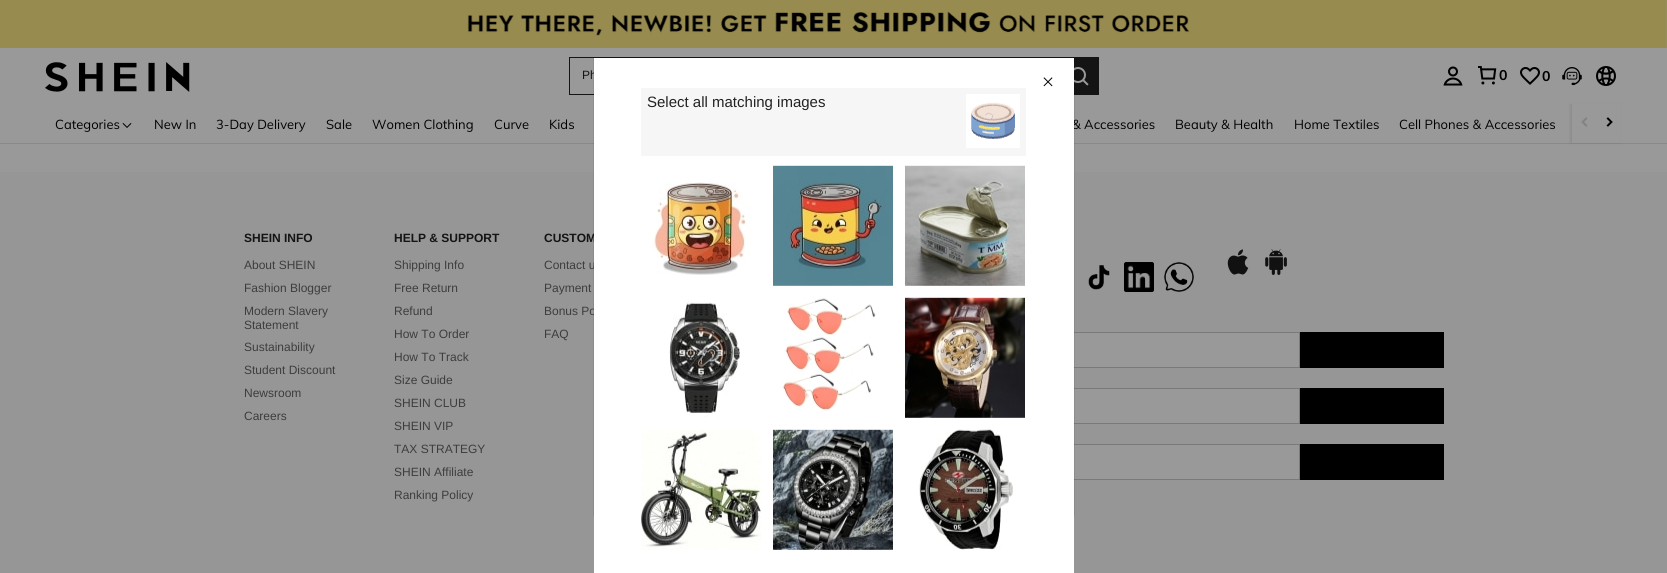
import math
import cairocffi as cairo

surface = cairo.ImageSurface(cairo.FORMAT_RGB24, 1667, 573)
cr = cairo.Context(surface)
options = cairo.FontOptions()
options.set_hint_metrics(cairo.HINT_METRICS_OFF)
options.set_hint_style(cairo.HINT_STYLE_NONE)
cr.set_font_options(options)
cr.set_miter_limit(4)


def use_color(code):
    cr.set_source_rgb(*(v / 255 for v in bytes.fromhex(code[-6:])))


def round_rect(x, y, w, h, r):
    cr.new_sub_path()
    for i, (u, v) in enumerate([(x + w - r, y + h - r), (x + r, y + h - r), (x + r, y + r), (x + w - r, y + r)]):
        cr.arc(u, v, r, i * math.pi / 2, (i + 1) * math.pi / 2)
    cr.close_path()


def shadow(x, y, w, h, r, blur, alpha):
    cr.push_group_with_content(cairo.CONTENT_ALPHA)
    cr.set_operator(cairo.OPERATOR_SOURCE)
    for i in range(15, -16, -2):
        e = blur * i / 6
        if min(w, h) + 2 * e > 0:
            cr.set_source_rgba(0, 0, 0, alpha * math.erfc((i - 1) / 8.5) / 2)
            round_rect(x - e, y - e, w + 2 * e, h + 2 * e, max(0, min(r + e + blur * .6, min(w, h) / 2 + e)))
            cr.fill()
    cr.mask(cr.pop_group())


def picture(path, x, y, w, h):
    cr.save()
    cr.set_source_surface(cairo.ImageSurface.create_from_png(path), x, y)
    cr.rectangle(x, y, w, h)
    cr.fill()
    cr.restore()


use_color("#999999")
cr.paint()
picture("img1.png", 0, 0, 1667, 48)
use_color("#898989")
cr.rectangle(0, 143, 1667, 1)
cr.fill()
use_color("#000000")
shadow(1570, 104, 50, 39, 0, 1.5, 0.08)
use_color("#999999")
cr.rectangle(1570, 103, 50, 1)
cr.fill()
picture("img2.png", 45, 62, 145, 30)
use_color("#141414")
cr.rectangle(569, 57, 490, 1)
cr.fill()
cr.rectangle(569, 94, 25, 1)
cr.fill()
cr.rectangle(569, 57, 1, 38)
cr.fill()
cr.select_font_face("Liberation Sans")
cr.set_font_size(12)
cr.move_to(582, 79)
cr.show_text("Ph")
cr.rectangle(1059, 57, 40, 38)
cr.fill()
picture("img3.png", 1074, 67, 15, 19)
picture("img4.png", 1443, 66, 20, 20)
picture("img5.png", 1478, 66, 19, 19)
cr.select_font_face("Muli", cairo.FONT_SLANT_NORMAL, cairo.FONT_WEIGHT_BOLD)
cr.set_font_size(14)
use_color("#000000")
cr.move_to(1499, 80)
cr.show_text("0")
picture("img6.png", 1520, 67, 20, 18)
cr.move_to(1542, 81)
cr.show_text("0")
picture("img7.png", 1562, 67, 20, 19)
picture("img8.png", 1596, 66, 20, 20)
cr.select_font_face("Muli")
cr.set_font_size(13)
cr.move_to(55, 129)
cr.show_text("Categories")
picture("img9.png", 122, 123, 10, 5)
cr.move_to(154, 129)
cr.show_text("New In")
cr.move_to(216, 129)
cr.show_text("3-Day Delivery")
cr.move_to(326, 129)
cr.show_text("Sale")
cr.move_to(372, 129)
cr.show_text("Women Clothing")
cr.move_to(494, 129)
cr.show_text("Curve")
cr.move_to(549, 129)
cr.show_text("Kids")
cr.move_to(1072, 129)
cr.show_text("& Accessories")
cr.move_to(1175, 129)
cr.show_text("Beauty & Health")
cr.move_to(1294, 129)
cr.show_text("Home Textiles")
cr.move_to(1399, 129)
cr.show_text("Cell Phones & Accessories")
use_color("#999999")
cr.rectangle(1572, 104, 49, 39)
cr.fill()
picture("img10.png", 1581, 117, 7, 10)
picture("img11.png", 1606, 117, 7, 10)
use_color("#969696")
cr.rectangle(0, 172, 1667, 401)
cr.fill()
cr.select_font_face("Liberation Sans", cairo.FONT_SLANT_NORMAL, cairo.FONT_WEIGHT_BOLD)
cr.set_font_size(12)
use_color("#141414")
cr.move_to(244, 242)
cr.show_text("SHEIN INFO")
cr.select_font_face("Liberation Sans")
use_color("#3d3d3d")
cr.move_to(244, 269)
cr.show_text("About SHEIN")
cr.move_to(244, 292)
cr.show_text("Fashion Blogger")
cr.move_to(244, 315)
cr.show_text("Modern Slavery")
cr.move_to(244, 329)
cr.show_text("Statement")
cr.move_to(244, 351)
cr.show_text("Sustainability")
cr.move_to(244, 374)
cr.show_text("Student Discount")
cr.move_to(244, 397)
cr.show_text("Newsroom")
cr.move_to(244, 420)
cr.show_text("Careers")
cr.select_font_face("Liberation Sans", cairo.FONT_SLANT_NORMAL, cairo.FONT_WEIGHT_BOLD)
use_color("#141414")
cr.move_to(394, 242)
cr.show_text("HELP & SUPPORT")
cr.select_font_face("Liberation Sans")
use_color("#3d3d3d")
cr.move_to(394, 269)
cr.show_text("Shipping Info")
cr.move_to(394, 292)
cr.show_text("Free Return")
cr.move_to(394, 315)
cr.show_text("Refund")
cr.move_to(394, 338)
cr.show_text("How To Order")
cr.move_to(394, 361)
cr.show_text("How To Track")
cr.move_to(394, 384)
cr.show_text("Size Guide")
cr.move_to(394, 407)
cr.show_text("SHEIN CLUB")
cr.move_to(394, 430)
cr.show_text("SHEIN VIP")
cr.move_to(394, 453)
cr.show_text("TAX STRATEGY")
cr.move_to(394, 476)
cr.show_text("SHEIN Affiliate")
cr.move_to(394, 499)
cr.show_text("Ranking Policy")
cr.select_font_face("Liberation Sans", cairo.FONT_SLANT_NORMAL, cairo.FONT_WEIGHT_BOLD)
use_color("#141414")
cr.move_to(544, 242)
cr.show_text("CUSTOM")
cr.select_font_face("Liberation Sans")
use_color("#3d3d3d")
cr.move_to(544, 269)
cr.show_text("Contact u")
cr.move_to(544, 292)
cr.show_text("Payment")
cr.move_to(544, 315)
cr.show_text("Bonus Po")
cr.move_to(544, 338)
cr.show_text("FAQ")
picture("img12.png", 1088, 265, 22, 25)
picture("img13.png", 1124, 262, 30, 30)
picture("img14.png", 1164, 262, 30, 30)
picture("img15.png", 1227, 249, 22, 26)
picture("img16.png", 1265, 249, 22, 26)
use_color("#999999")
cr.rectangle(1074, 333, 225, 34)
cr.fill()
cr.rectangle(844.5, 332.5, 455, 35)
use_color("#7a7a7a")
cr.set_line_width(1)
cr.stroke()
use_color("#000000")
cr.rectangle(1300, 332, 144, 36)
cr.fill()
use_color("#999999")
cr.rectangle(1074, 389, 225, 34)
cr.fill()
cr.rectangle(924.5, 388.5, 375, 35)
use_color("#7a7a7a")
cr.stroke()
use_color("#000000")
cr.rectangle(1300, 388, 144, 36)
cr.fill()
use_color("#999999")
cr.rectangle(1074, 445, 225, 34)
cr.fill()
cr.rectangle(924.5, 444.5, 375, 35)
use_color("#7a7a7a")
cr.stroke()
use_color("#000000")
cr.rectangle(1300, 444, 144, 36)
cr.fill()
use_color("#000000")
shadow(594, 58, 480, 458, 0, 0.5, 0.3)
use_color("#ffffff")
cr.rectangle(594, 58, 480, 515)
cr.fill()
picture("img17.png", 1043, 77, 10, 10)
use_color("#f6f6f6")
cr.rectangle(641, 88, 385, 68)
cr.fill()
cr.set_font_size(15)
use_color("#222222")
cr.move_to(647, 107)
cr.show_text("Select all matching images")
use_color("#ffffff")
cr.rectangle(966, 94, 54, 54)
cr.fill()
picture("img18.png", 971, 102, 44, 37)
picture("img19.png", 653, 182, 98, 93)
picture("img20.png", 773, 165, 120, 121)
picture("img21.png", 905, 165, 120, 121)
picture("img22.png", 669, 301, 75, 117)
picture("img23.png", 782, 298, 94, 113)
picture("img24.png", 905, 297, 120, 121)
picture("img25.png", 641, 430, 120, 120)
picture("img26.png", 773, 429, 120, 121)
picture("img27.png", 919, 429, 94, 121)
surface.write_to_png("result.png")
